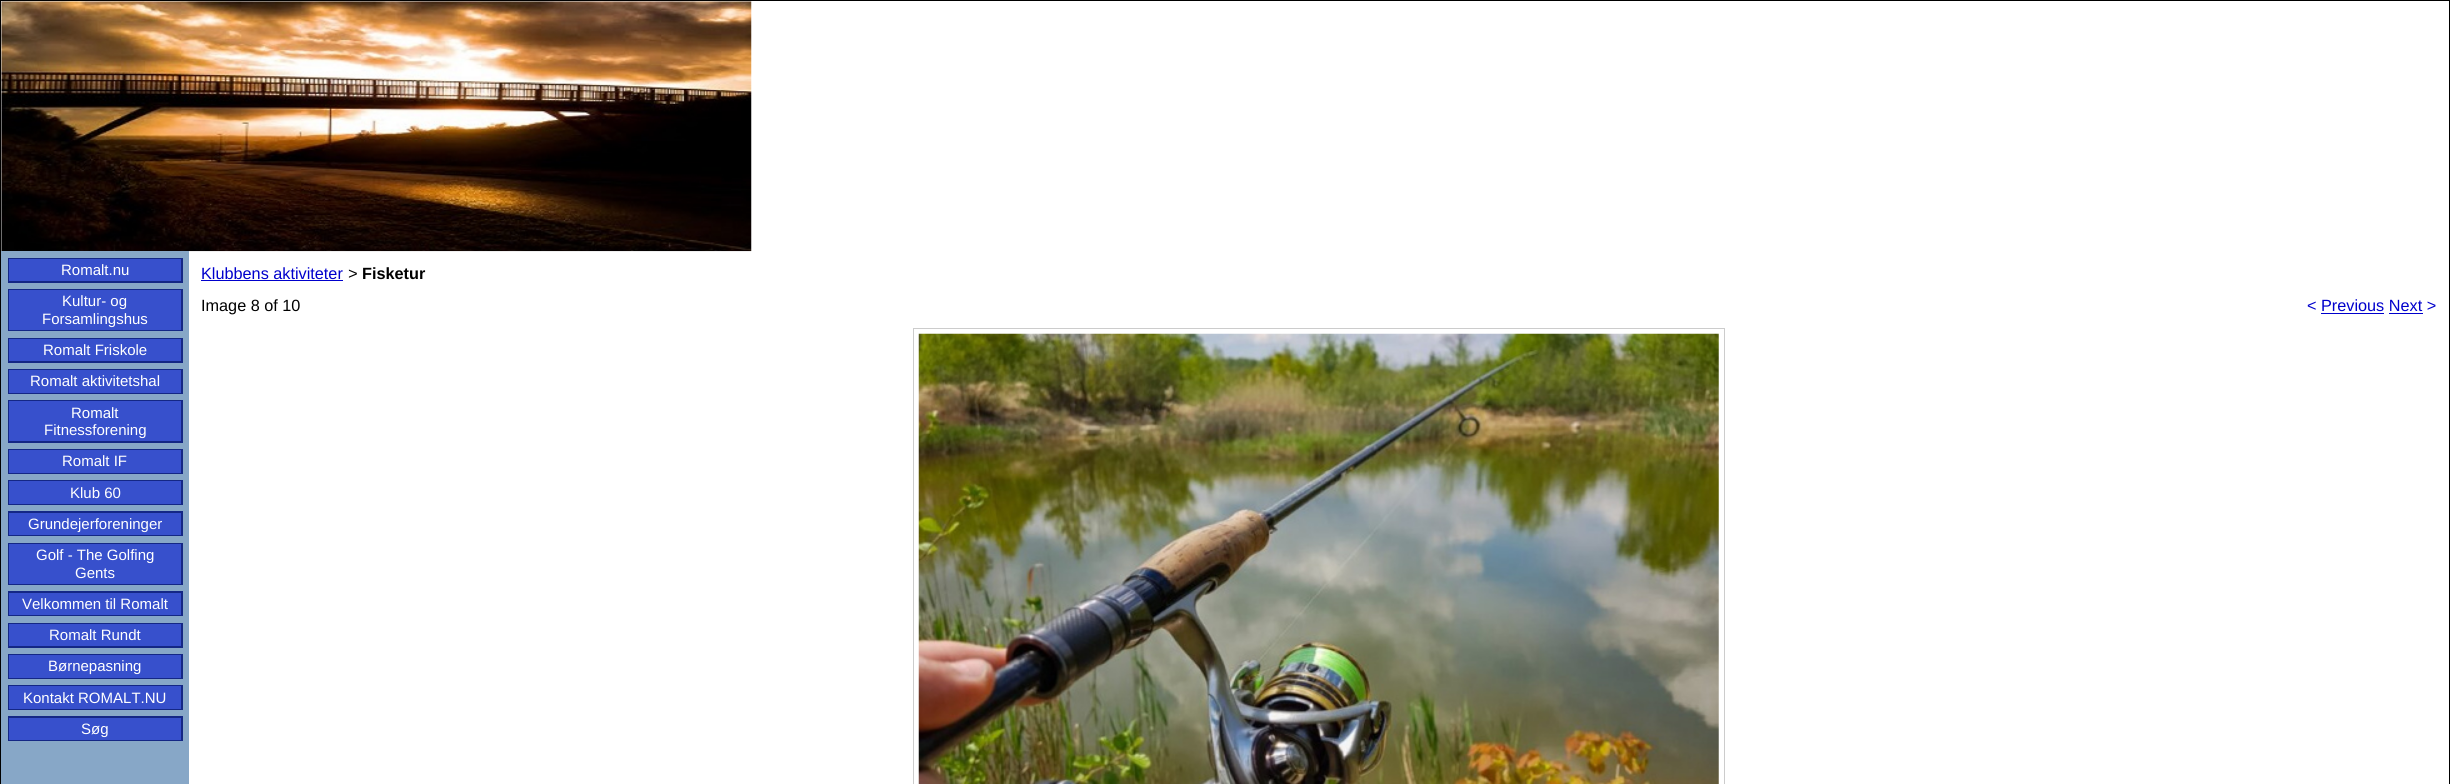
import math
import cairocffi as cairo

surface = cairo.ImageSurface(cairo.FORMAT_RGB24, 2450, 784)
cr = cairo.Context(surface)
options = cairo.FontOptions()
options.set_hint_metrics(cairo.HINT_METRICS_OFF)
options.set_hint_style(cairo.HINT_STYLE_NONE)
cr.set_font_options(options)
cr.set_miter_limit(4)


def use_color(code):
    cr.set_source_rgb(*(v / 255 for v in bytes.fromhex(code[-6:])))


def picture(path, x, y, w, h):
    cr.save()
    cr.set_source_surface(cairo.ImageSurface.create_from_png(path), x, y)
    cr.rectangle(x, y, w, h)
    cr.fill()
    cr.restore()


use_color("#000000")
cr.paint()
use_color("#ffffff")
cr.rectangle(1, 1, 2448, 250)
cr.fill()
cr.rectangle(189, 251, 2260, 533)
cr.fill()
picture("img1.png", 1, 1, 751, 251)
use_color("#87a7c7")
cr.rectangle(1, 251, 188, 533)
cr.fill()
use_color("#142785")
cr.rectangle(8, 258, 175, 25)
cr.fill()
use_color("#3750cc")
cr.rectangle(9, 259, 172, 22)
cr.fill()
cr.select_font_face("Liberation Sans")
cr.set_font_size(15)
use_color("#ffffff")
cr.move_to(61, 275)
cr.show_text("Romalt.nu")
use_color("#142785")
cr.rectangle(8, 289, 175, 42)
cr.fill()
use_color("#3750cc")
cr.rectangle(9, 290, 172, 40)
cr.fill()
use_color("#ffffff")
cr.move_to(62, 306)
cr.show_text("Kultur- og")
cr.move_to(42, 324)
cr.show_text("Forsamlingshus")
use_color("#142785")
cr.rectangle(8, 338, 175, 25)
cr.fill()
use_color("#3750cc")
cr.rectangle(9, 339, 172, 22)
cr.fill()
use_color("#ffffff")
cr.move_to(43, 355)
cr.show_text("Romalt Friskole")
use_color("#142785")
cr.rectangle(8, 369, 175, 25)
cr.fill()
use_color("#3750cc")
cr.rectangle(9, 370, 172, 23)
cr.fill()
use_color("#ffffff")
cr.move_to(30, 386)
cr.show_text("Romalt aktivitetshal")
use_color("#142785")
cr.rectangle(8, 400, 175, 43)
cr.fill()
use_color("#3750cc")
cr.rectangle(9, 401, 172, 40)
cr.fill()
use_color("#ffffff")
cr.move_to(71, 418)
cr.show_text("Romalt")
cr.move_to(44, 435)
cr.show_text("Fitnessforening")
use_color("#142785")
cr.rectangle(8, 449, 175, 25)
cr.fill()
use_color("#3750cc")
cr.rectangle(9, 450, 172, 23)
cr.fill()
use_color("#ffffff")
cr.move_to(62, 466)
cr.show_text("Romalt IF")
use_color("#142785")
cr.rectangle(8, 480, 175, 25)
cr.fill()
use_color("#3750cc")
cr.rectangle(9, 481, 172, 23)
cr.fill()
use_color("#ffffff")
cr.move_to(70, 498)
cr.show_text("Klub 60")
use_color("#142785")
cr.rectangle(8, 511, 175, 25)
cr.fill()
use_color("#3750cc")
cr.rectangle(9, 513, 172, 22)
cr.fill()
use_color("#ffffff")
cr.move_to(28, 529)
cr.show_text("Grundejerforeninger")
use_color("#142785")
cr.rectangle(8, 543, 175, 42)
cr.fill()
use_color("#3750cc")
cr.rectangle(9, 544, 172, 40)
cr.fill()
use_color("#ffffff")
cr.move_to(36, 560)
cr.show_text("Golf - The Golfing")
cr.move_to(75, 578)
cr.show_text("Gents")
use_color("#142785")
cr.rectangle(8, 591, 175, 25)
cr.fill()
use_color("#3750cc")
cr.rectangle(9, 593, 172, 22)
cr.fill()
use_color("#ffffff")
cr.move_to(22, 609)
cr.show_text("Velkommen til Romalt")
use_color("#142785")
cr.rectangle(8, 623, 175, 25)
cr.fill()
use_color("#3750cc")
cr.rectangle(9, 624, 172, 22)
cr.fill()
use_color("#ffffff")
cr.move_to(49, 640)
cr.show_text("Romalt Rundt")
use_color("#142785")
cr.rectangle(8, 654, 175, 25)
cr.fill()
use_color("#3750cc")
cr.rectangle(9, 655, 172, 23)
cr.fill()
use_color("#ffffff")
cr.move_to(48, 671)
cr.show_text("Børnepasning")
use_color("#142785")
cr.rectangle(8, 685, 175, 25)
cr.fill()
use_color("#3750cc")
cr.rectangle(9, 686, 172, 23)
cr.fill()
use_color("#ffffff")
cr.move_to(23, 703)
cr.show_text("Kontakt ROMALT.NU")
use_color("#142785")
cr.rectangle(8, 716, 175, 25)
cr.fill()
use_color("#3750cc")
cr.rectangle(9, 718, 172, 22)
cr.fill()
use_color("#ffffff")
cr.move_to(81, 734)
cr.show_text("Søg")
cr.set_font_size(16.25)
use_color("#0000cc")
cr.move_to(201, 279)
cr.show_text("Klubbens aktiviteter")
cr.rectangle(201, 280, 142, 1)
cr.fill()
cr.select_font_face("Liberation Mono")
use_color("#000000")
cr.move_to(348, 279)
cr.show_text(">")
cr.select_font_face("Liberation Sans", cairo.FONT_SLANT_NORMAL, cairo.FONT_WEIGHT_BOLD)
cr.move_to(362, 279)
cr.show_text("Fisketur")
cr.select_font_face("Liberation Sans")
cr.move_to(201, 311)
cr.show_text("Image 8 of 10")
use_color("#0000cc")
cr.move_to(2307, 311)
cr.show_text("< Previous Next >")
cr.rectangle(2321, 313, 63, 1)
cr.fill()
cr.rectangle(2389, 313, 34, 1)
cr.fill()
cr.rectangle(913.5, 328.5, 811, 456)
use_color("#cccccc")
cr.set_line_width(1)
cr.stroke()
picture("img2.png", 918, 333, 801, 451)
surface.write_to_png("result.png")
